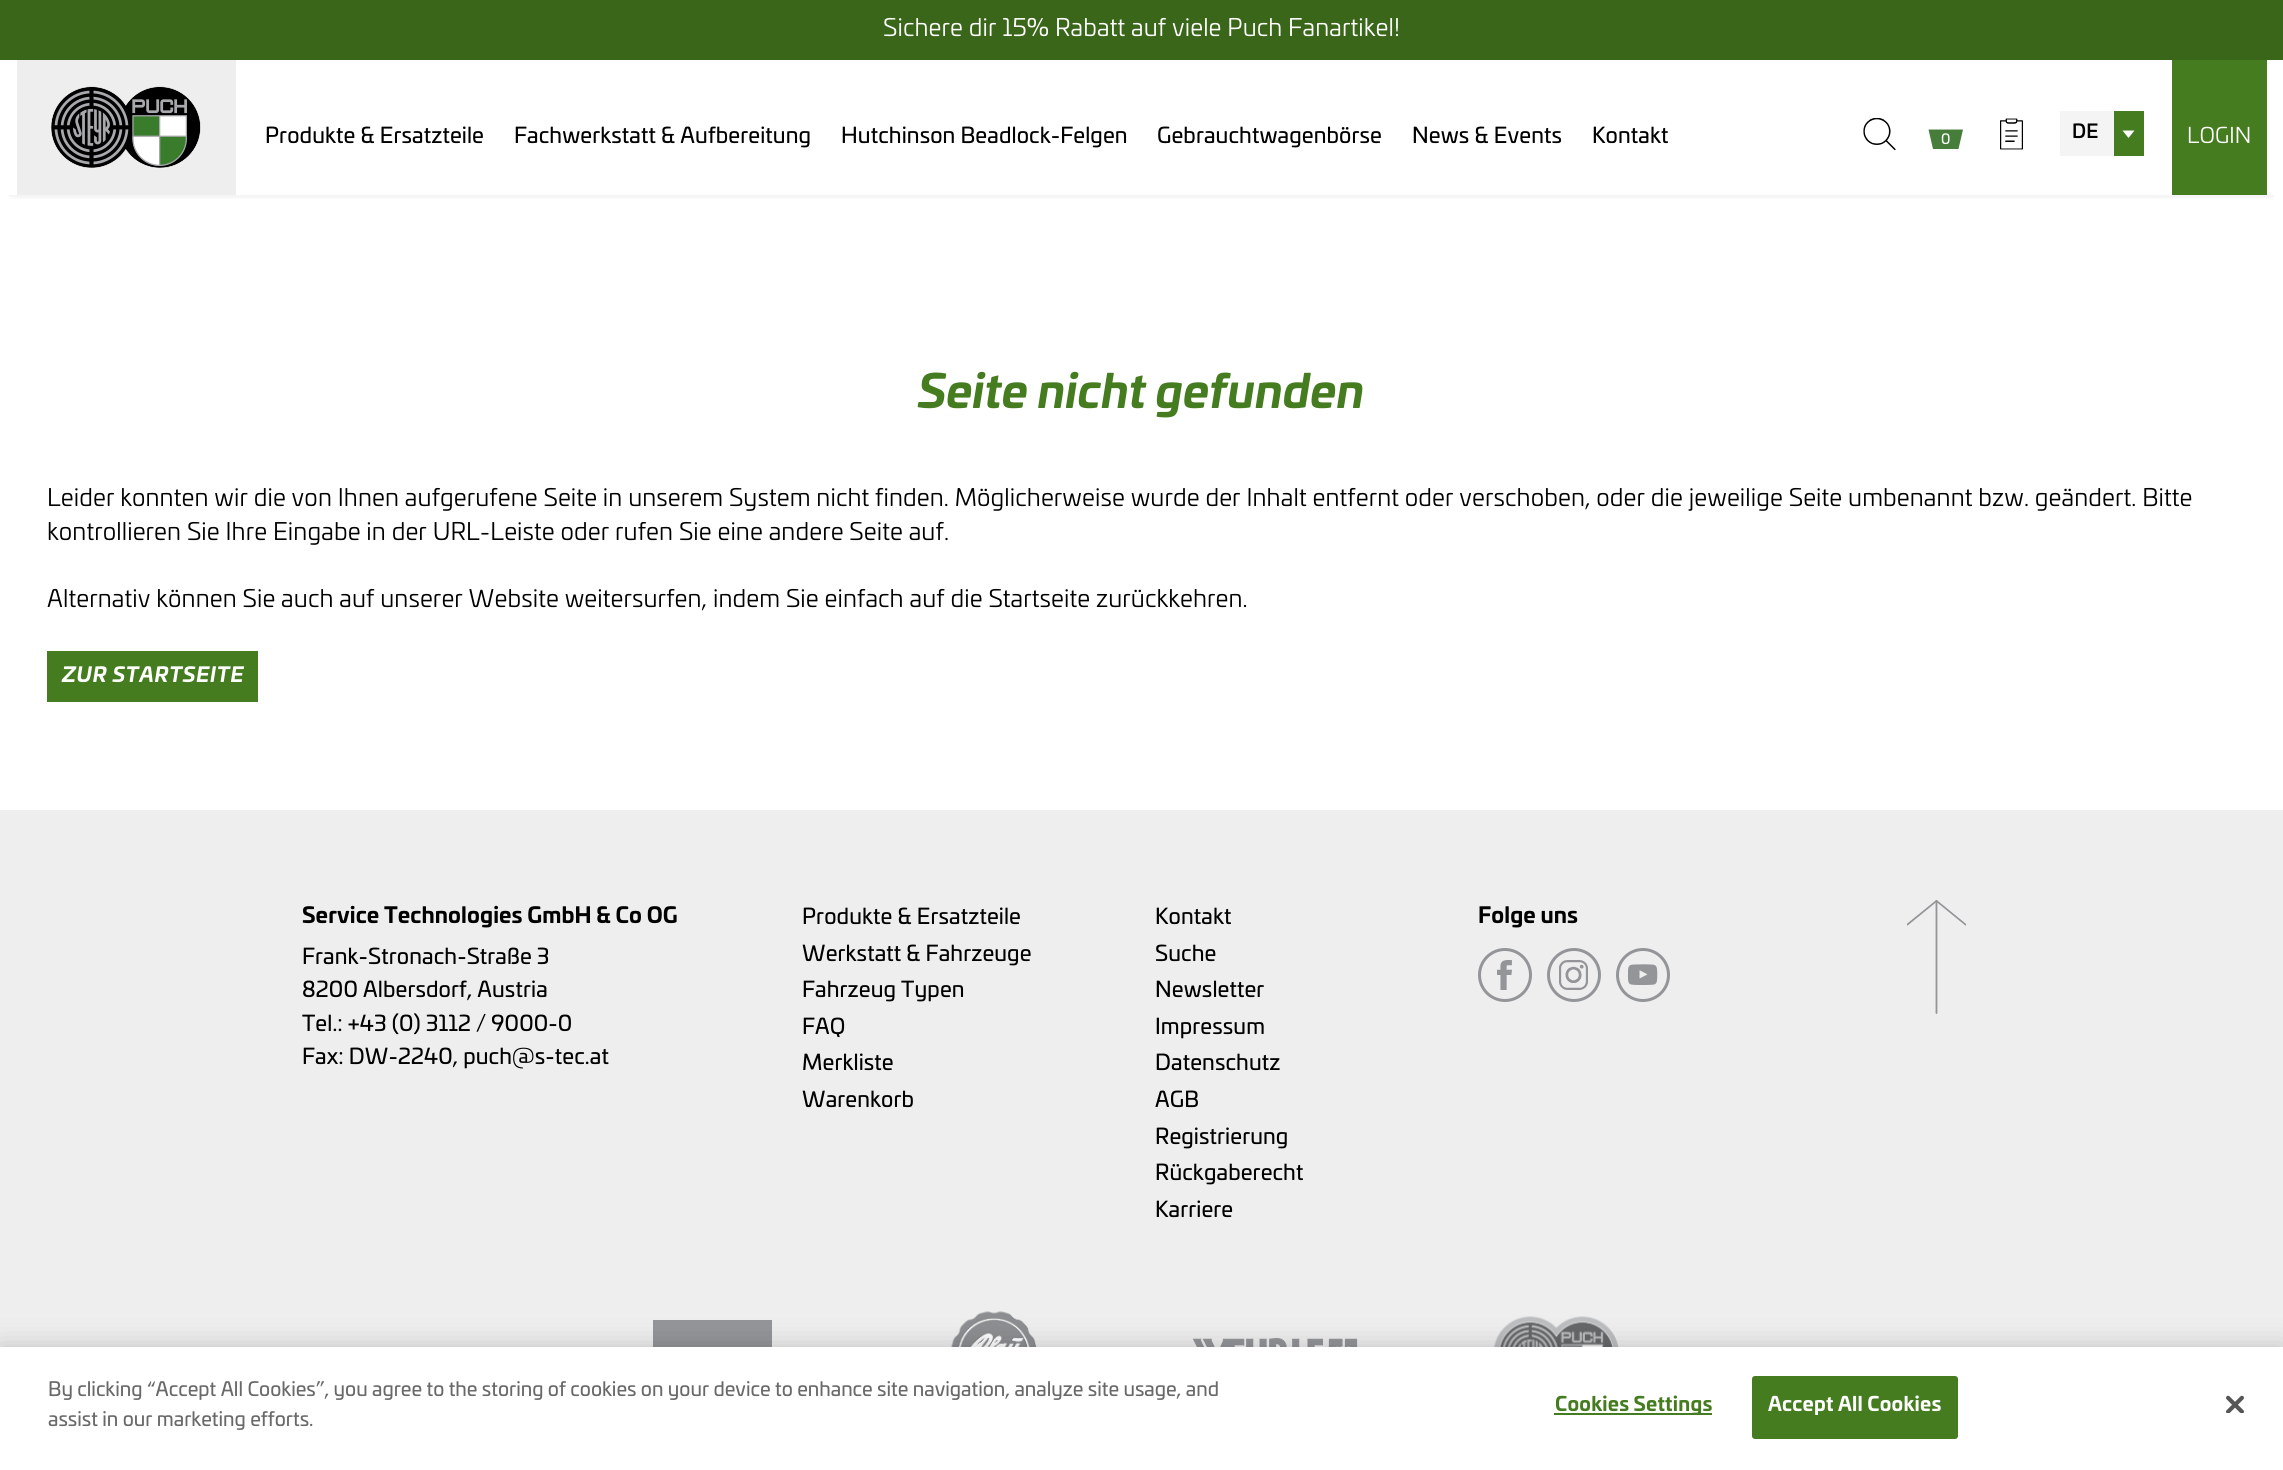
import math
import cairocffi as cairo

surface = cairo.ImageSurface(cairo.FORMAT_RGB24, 2283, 1470)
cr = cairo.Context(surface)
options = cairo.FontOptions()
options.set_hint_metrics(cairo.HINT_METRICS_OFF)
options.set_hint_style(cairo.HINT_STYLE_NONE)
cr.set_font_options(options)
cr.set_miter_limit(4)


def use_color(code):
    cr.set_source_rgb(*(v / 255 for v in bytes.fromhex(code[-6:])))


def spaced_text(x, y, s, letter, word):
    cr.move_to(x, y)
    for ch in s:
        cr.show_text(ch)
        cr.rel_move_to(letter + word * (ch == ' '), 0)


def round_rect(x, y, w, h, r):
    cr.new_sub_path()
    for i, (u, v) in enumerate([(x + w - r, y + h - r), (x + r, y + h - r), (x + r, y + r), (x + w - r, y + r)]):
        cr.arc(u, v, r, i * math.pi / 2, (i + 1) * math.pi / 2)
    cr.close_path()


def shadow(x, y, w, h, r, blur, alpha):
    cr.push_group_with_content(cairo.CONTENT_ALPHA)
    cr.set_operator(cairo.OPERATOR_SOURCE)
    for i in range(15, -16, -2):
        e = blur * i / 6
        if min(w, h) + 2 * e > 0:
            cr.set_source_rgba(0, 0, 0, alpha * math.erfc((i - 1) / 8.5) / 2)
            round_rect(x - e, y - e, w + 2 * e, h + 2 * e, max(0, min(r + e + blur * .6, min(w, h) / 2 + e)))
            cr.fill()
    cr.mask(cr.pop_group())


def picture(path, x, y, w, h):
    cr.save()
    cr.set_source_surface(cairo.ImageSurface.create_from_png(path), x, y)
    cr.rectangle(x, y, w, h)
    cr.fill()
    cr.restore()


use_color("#ffffff")
cr.paint()
cr.save()
cr.rectangle(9, 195, 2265, 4)
cr.clip()
use_color("#333333")
shadow(12, 72, 2259, 111, 0, 8, 1)
cr.restore()
use_color("#396619")
cr.rectangle(0, 0, 2283, 60)
cr.fill()
cr.select_font_face("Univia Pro")
cr.set_font_size(24)
use_color("#ffffff")
spaced_text(883, 36, "Sichere dir 15% Rabatt auf viele Puch Fanartikel!", 0.12, 0)
use_color("#eeeeee")
cr.rectangle(17, 60, 219, 135)
cr.fill()
picture("img1.png", 50, 86, 151, 83)
cr.select_font_face("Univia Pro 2")
cr.set_font_size(21.6)
use_color("#000000")
spaced_text(265, 143, "Produkte & Ersatzteile", 0.12, 0)
spaced_text(514, 143, "Fachwerkstatt & Aufbereitung", 0.12, 0)
spaced_text(841, 143, "Hutchinson Beadlock-Felgen", 0.12, 0)
spaced_text(1157, 143, "Gebrauchtwagenbörse", 0.12, 0)
spaced_text(1412, 143, "News & Events", 0.12, 0)
spaced_text(1592, 143, "Kontakt", 0.12, 0)
picture("img2.png", 1863, 118, 33, 32)
use_color("#477d3b")
cr.new_path()
cr.move_to(1958.5, 149)
cr.line_to(1933, 149)
cr.line_to(1928.5, 129.5)
cr.line_to(1963, 129.5)
cr.close_path()
cr.move_to(1955, 129.5)
cr.line_to(1951.5, 119)
cr.move_to(1936.5, 129.5)
cr.line_to(1939.5, 119)
cr.fill()
cr.set_font_size(14)
use_color("#ffffff")
spaced_text(1941, 144, "0", 0.12, 0)
picture("img3.png", 2000, 118, 23, 32)
use_color("#f4f4f4")
cr.rectangle(2060, 111, 54, 45)
cr.fill()
cr.select_font_face("Univia Pro Medium")
cr.set_font_size(19)
use_color("#000000")
spaced_text(2072, 138, "DE", 0.12, 0)
use_color("#457c1f")
cr.rectangle(2114, 111, 30, 45)
cr.fill()
use_color("#ffffff")
cr.new_path()
cr.move_to(2122.5, 130.5)
cr.line_to(2134.5, 130.5)
cr.line_to(2128.5, 138)
cr.close_path()
cr.fill()
use_color("#457c1f")
cr.rectangle(2172, 60, 95, 135)
cr.fill()
cr.select_font_face("Univia Pro")
cr.set_font_size(21.6)
use_color("#ffffff")
spaced_text(2187, 143, "LOGIN", 0.12, 0)
cr.select_font_face("Univia Pro", cairo.FONT_SLANT_ITALIC, cairo.FONT_WEIGHT_BOLD)
cr.set_font_size(45.5)
use_color("#457c1f")
spaced_text(918, 408, "Seite nicht gefunden", 0.12, 0)
cr.select_font_face("Univia Pro")
cr.set_font_size(24)
use_color("#000000")
spaced_text(47, 506, "Leider konnten wir die von Ihnen aufgerufene Seite in unserem System nicht finden. Möglicherweise wurde der Inhalt entfernt oder verschoben, oder die jeweilige Seite umbenannt bzw. geändert. Bitte", 0.12, 0)
spaced_text(47, 540, "kontrollieren Sie Ihre Eingabe in der URL-Leiste oder rufen Sie eine andere Seite auf.", 0.12, 0)
spaced_text(47, 607, "Alternativ können Sie auch auf unserer Website weitersurfen, indem Sie einfach auf die Startseite zurückkehren.", 0.12, 0)
use_color("#457c1f")
cr.rectangle(47, 651, 211, 51)
cr.fill()
cr.select_font_face("Univia Pro", cairo.FONT_SLANT_ITALIC, cairo.FONT_WEIGHT_BOLD)
cr.set_font_size(20.25)
use_color("#ffffff")
spaced_text(62, 682, "ZUR STARTSEITE", 0.75, 0)
use_color("#eeeeee")
cr.rectangle(0, 810, 2283, 537)
cr.fill()
cr.select_font_face("Univia Pro", cairo.FONT_SLANT_NORMAL, cairo.FONT_WEIGHT_BOLD)
cr.set_font_size(21.6)
use_color("#000000")
spaced_text(302, 923, "Service Technologies GmbH & Co OG", 0.12, 0)
cr.select_font_face("Univia Pro 2")
spaced_text(302, 964, "Frank-Stronach-Straße 3", 0.12, 0)
spaced_text(302, 997, "8200 Albersdorf, Austria", 0.12, 0)
spaced_text(302, 1031, "Tel.: +43 (0) 3112 / 9000-0", 0.12, 0)
spaced_text(302, 1064, "Fax: DW-2240, puch@s-tec.at", 0.12, 0)
spaced_text(802, 924, "Produkte & Ersatzteile", 0.12, 0)
spaced_text(802, 961, "Werkstatt & Fahrzeuge", 0.12, 0)
spaced_text(802, 997, "Fahrzeug Typen", 0.12, 0)
spaced_text(802, 1034, "FAQ", 0.12, 0)
spaced_text(802, 1070, "Merkliste", 0.12, 0)
spaced_text(802, 1107, "Warenkorb", 0.12, 0)
spaced_text(1155, 924, "Kontakt", 0.12, 0)
spaced_text(1155, 961, "Suche", 0.12, 0)
spaced_text(1155, 997, "Newsletter", 0.12, 0)
spaced_text(1155, 1034, "Impressum", 0.12, 0)
spaced_text(1155, 1070, "Datenschutz", 0.12, 0)
spaced_text(1155, 1107, "AGB", 0.12, 0)
spaced_text(1155, 1144, "Registrierung", 0.12, 0)
spaced_text(1155, 1180, "Rückgaberecht", 0.12, 0)
spaced_text(1155, 1217, "Karriere", 0.12, 0)
cr.select_font_face("Univia Pro", cairo.FONT_SLANT_NORMAL, cairo.FONT_WEIGHT_BOLD)
spaced_text(1478, 923, "Folge uns", 0.12, 0)
picture("img4.png", 1497, 960, 15, 30)
cr.arc(1505, 975, 25.5, 0, 2 * math.pi)
use_color("#939598")
cr.set_line_width(3)
cr.stroke()
picture("img5.png", 1559, 960, 29, 30)
cr.arc(1574, 975, 25.5, 0, 2 * math.pi)
cr.stroke()
picture("img6.png", 1628, 964, 30, 21)
cr.arc(1643, 975, 25.5, 0, 2 * math.pi)
cr.stroke()
picture("img7.png", 1907, 900, 60, 114)
cr.rectangle(653, 1320, 119, 27)
cr.fill()
picture("img8.png", 951, 1311, 86, 36)
picture("img9.png", 1193, 1338, 165, 9)
picture("img10.png", 1493, 1316, 126, 31)
use_color("#000000")
shadow(0, 1347, 2283, 123, 0, 13.5, 0.2)
use_color("#ffffff")
cr.rectangle(0, 1347, 2283, 123)
cr.fill()
cr.select_font_face("Univia Pro 2")
cr.set_font_size(19.5)
use_color("#696969")
cr.move_to(48, 1396)
cr.show_text("By clicking “Accept All Cookies”, you agree to the storing of cookies on your device to enhance site navigation, analyze site usage, and")
cr.move_to(48, 1426)
cr.show_text("assist in our marketing efforts.")
use_color("#457c1f")
cr.rectangle(1554, 1413, 158, 2)
cr.fill()
cr.select_font_face("Univia Pro", cairo.FONT_SLANT_NORMAL, cairo.FONT_WEIGHT_BOLD)
spaced_text(1555, 1411, "Cookies Settings", 0.25, 0)
round_rect(1753, 1377, 204, 61, 2)
cr.fill_preserve()
cr.set_line_width(2)
cr.stroke()
use_color("#ffffff")
spaced_text(1768, 1411, "Accept All Cookies", 0.25, 0)
picture("img11.png", 2226, 1395, 18, 18)
surface.write_to_png("result.png")
